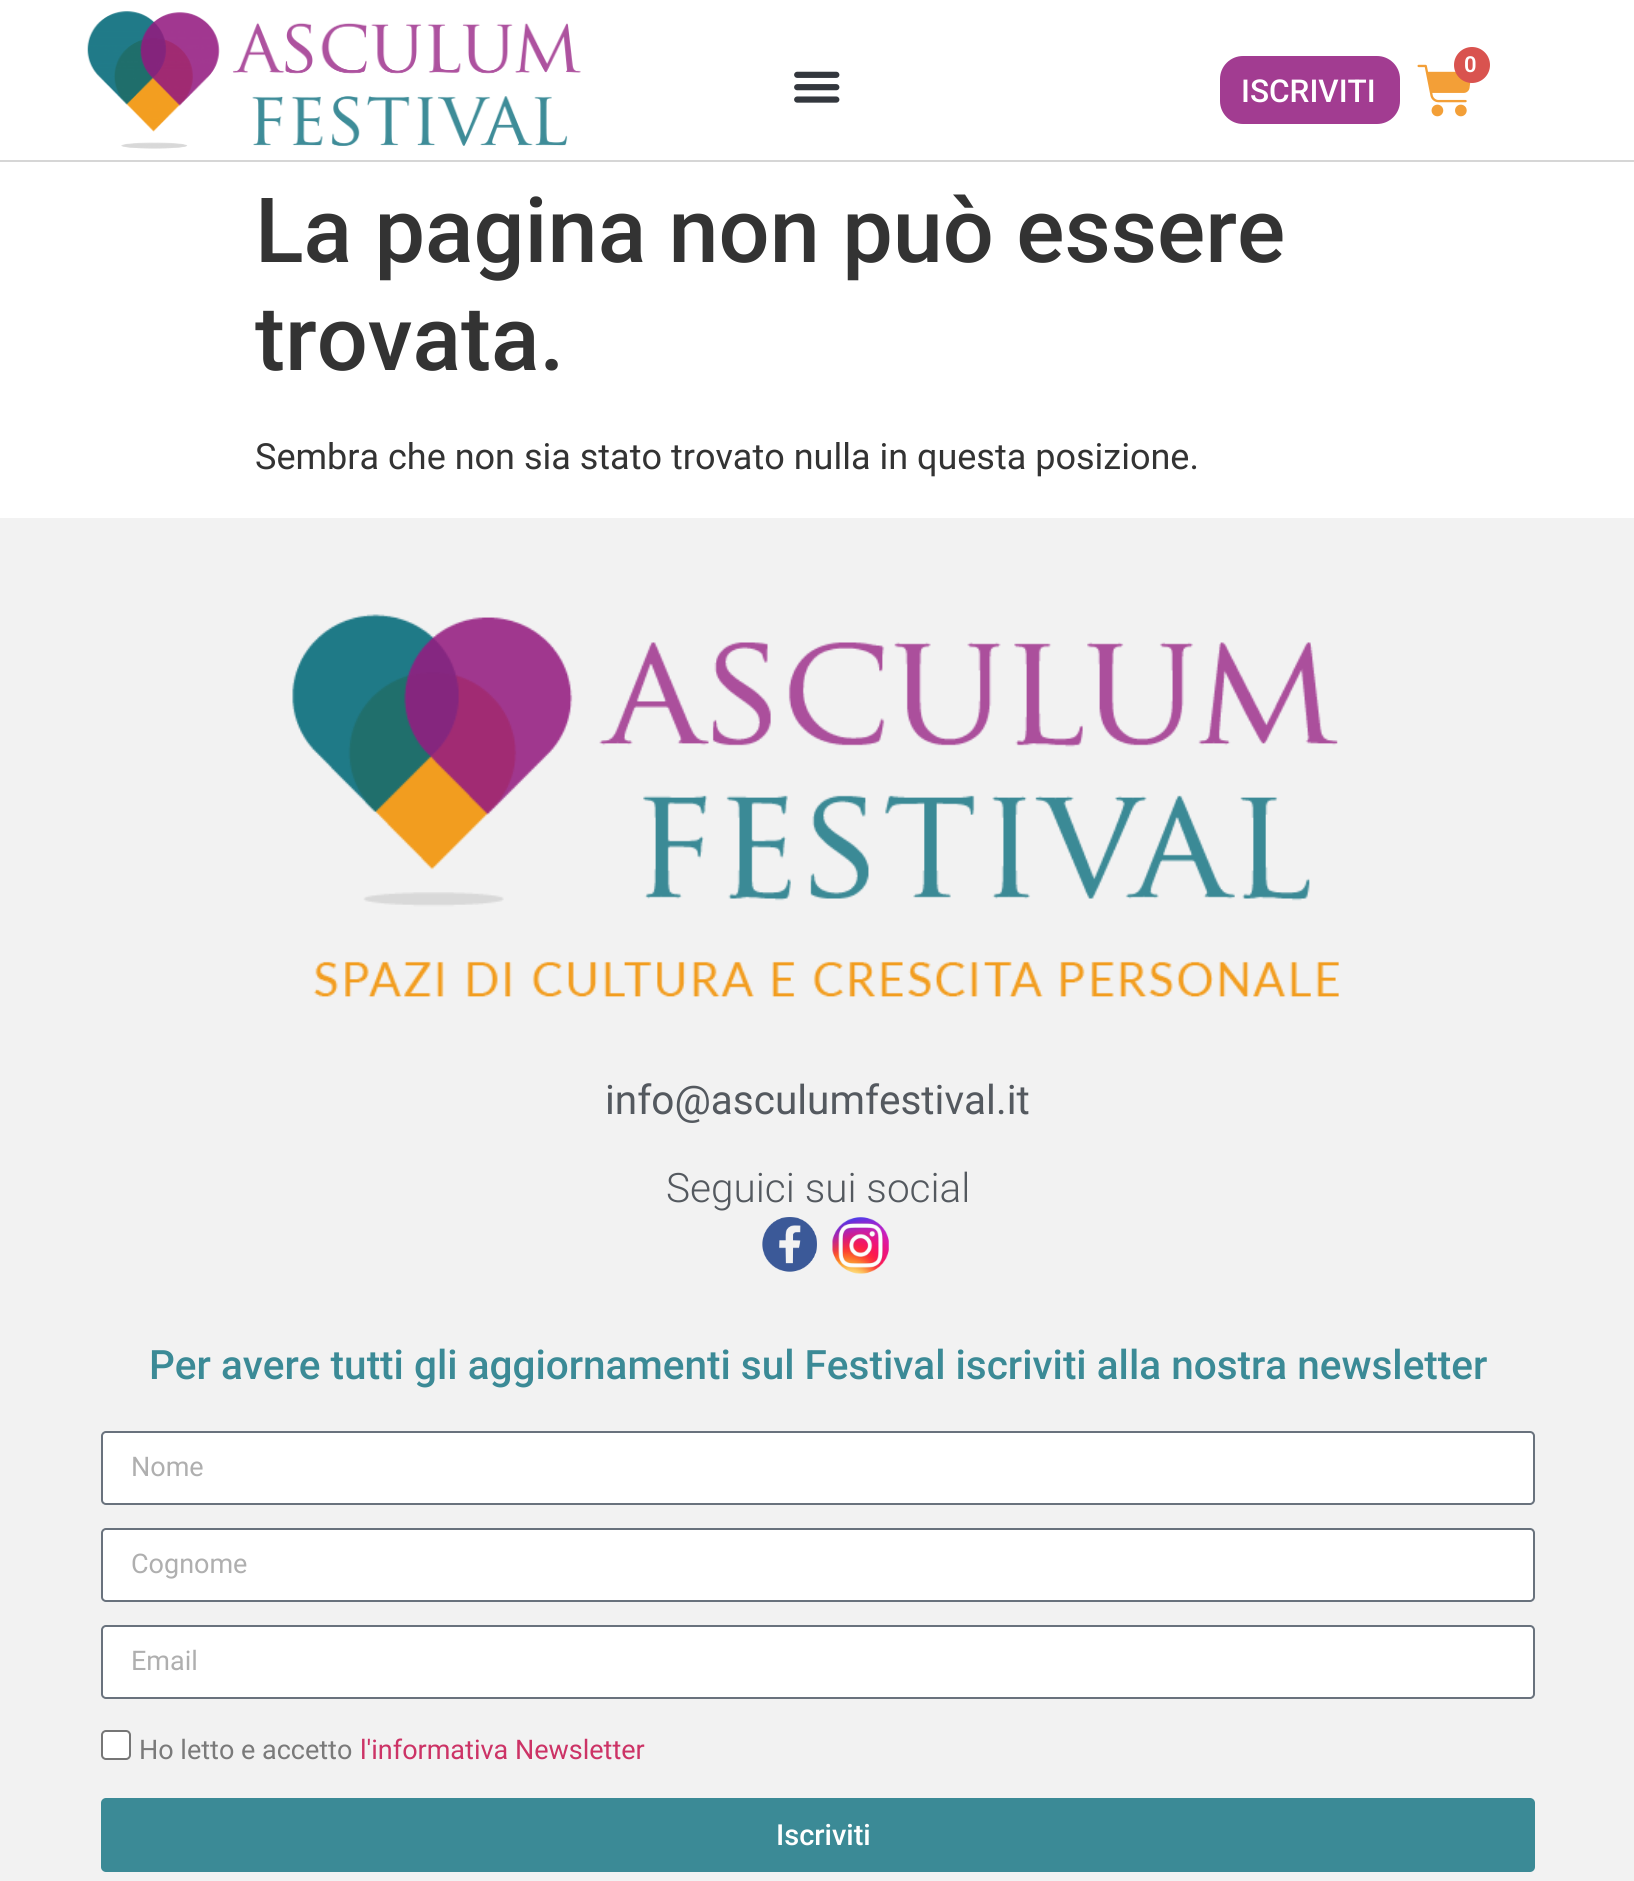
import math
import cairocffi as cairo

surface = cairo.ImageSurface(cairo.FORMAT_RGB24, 1634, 1881)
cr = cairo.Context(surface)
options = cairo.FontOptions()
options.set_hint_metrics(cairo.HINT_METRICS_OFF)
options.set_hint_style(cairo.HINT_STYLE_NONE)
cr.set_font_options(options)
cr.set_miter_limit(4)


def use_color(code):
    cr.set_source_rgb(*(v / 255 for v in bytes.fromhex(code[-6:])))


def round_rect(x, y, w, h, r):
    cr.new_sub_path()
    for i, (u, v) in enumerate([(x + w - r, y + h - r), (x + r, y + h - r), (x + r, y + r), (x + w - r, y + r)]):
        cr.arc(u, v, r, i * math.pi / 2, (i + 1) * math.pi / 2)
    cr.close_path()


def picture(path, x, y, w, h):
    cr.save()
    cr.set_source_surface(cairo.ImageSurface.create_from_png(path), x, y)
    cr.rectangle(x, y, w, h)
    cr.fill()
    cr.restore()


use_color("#ffffff")
cr.paint()
use_color("#d6d6d6")
cr.rectangle(0, 160, 1634, 2)
cr.fill()
picture("img1.png", 87, 11, 494, 138)
picture("img2.png", 794, 71, 46, 32)
picture("img3.png", 1417, 64, 54, 53)
use_color("#d9534f")
cr.arc(1472, 65, 18, 0, 2 * math.pi)
cr.fill()
cr.select_font_face("Roboto SemiBold")
cr.set_font_size(22)
use_color("#ffffff")
cr.move_to(1464, 72)
cr.show_text("0")
use_color("#a23c91")
round_rect(1220, 56, 180, 68, 23)
cr.fill()
cr.select_font_face("Roboto Medium")
cr.set_font_size(31.5)
use_color("#ffffff")
cr.move_to(1241, 102)
cr.show_text("ISCRIVITI")
cr.set_font_size(90)
use_color("#333333")
cr.move_to(255, 262)
cr.show_text("La pagina non può essere")
cr.move_to(255, 370)
cr.show_text("trovata.")
cr.select_font_face("Roboto")
cr.set_font_size(36)
cr.move_to(255, 469)
cr.show_text("Sembra che non sia stato trovato nulla in questa posizione.")
use_color("#f2f2f2")
cr.rectangle(0, 518, 1634, 1363)
cr.fill()
picture("img4.png", 292, 614, 1047, 383)
cr.set_font_size(40.5)
use_color("#54595f")
cr.move_to(605, 1114)
cr.show_text("info@asculumfestival.it")
cr.select_font_face("Roboto Light")
cr.move_to(666, 1202)
cr.show_text("Seguici sui social")
picture("img5.png", 762, 1217, 55, 55)
picture("img6.png", 832, 1217, 57, 57)
cr.select_font_face("Roboto Medium")
use_color("#3b8a96")
cr.move_to(149, 1379)
cr.show_text("Per avere tutti gli aggiornamenti sul Festival iscriviti alla nostra newsletter")
use_color("#ffffff")
round_rect(102, 1432, 1432, 72, 4)
cr.fill_preserve()
use_color("#69727d")
cr.stroke()
cr.select_font_face("Roboto")
cr.set_font_size(27)
use_color("#afafaf")
cr.move_to(131, 1476)
cr.show_text("Nome")
use_color("#ffffff")
round_rect(102, 1529, 1432, 72, 4)
cr.fill_preserve()
use_color("#69727d")
cr.stroke()
use_color("#afafaf")
cr.move_to(131, 1573)
cr.show_text("Cognome")
use_color("#ffffff")
round_rect(102, 1626, 1432, 72, 4)
cr.fill_preserve()
use_color("#69727d")
cr.stroke()
use_color("#afafaf")
cr.move_to(131, 1670)
cr.show_text("Email")
use_color("#ffffff")
round_rect(102, 1731, 28, 28, 4)
cr.fill_preserve()
use_color("#767676")
cr.stroke()
use_color("#7a7a7a")
cr.move_to(139, 1759)
cr.show_text("Ho letto e accetto")
use_color("#cc3366")
cr.move_to(360, 1759)
cr.show_text("l'informativa Newsletter")
use_color("#3b8a96")
round_rect(101, 1798, 1434, 74, 5)
cr.fill()
cr.select_font_face("Roboto Medium")
cr.set_font_size(29)
use_color("#ffffff")
cr.move_to(776, 1845)
cr.show_text("Iscriviti")
surface.write_to_png("result.png")
